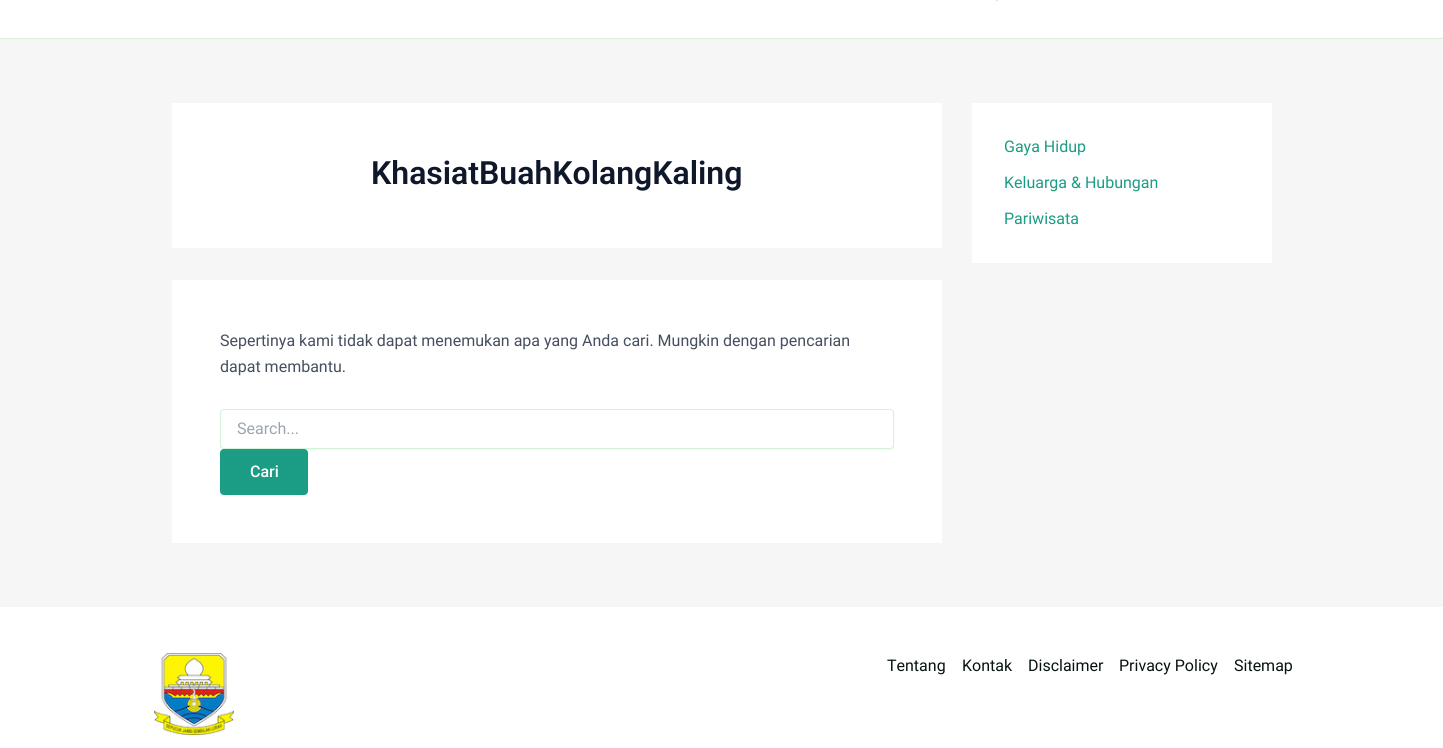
import math
import cairocffi as cairo

surface = cairo.ImageSurface(cairo.FORMAT_RGB24, 1443, 748)
cr = cairo.Context(surface)
options = cairo.FontOptions()
options.set_hint_metrics(cairo.HINT_METRICS_OFF)
options.set_hint_style(cairo.HINT_STYLE_NONE)
cr.set_font_options(options)
cr.set_miter_limit(4)


def use_color(code):
    cr.set_source_rgb(*(v / 255 for v in bytes.fromhex(code[-6:])))


def round_rect(x, y, w, h, r):
    cr.new_sub_path()
    for i, (u, v) in enumerate([(x + w - r, y + h - r), (x + r, y + h - r), (x + r, y + r), (x + w - r, y + r)]):
        cr.arc(u, v, r, i * math.pi / 2, (i + 1) * math.pi / 2)
    cr.close_path()


def shadow(x, y, w, h, r, blur, alpha):
    cr.push_group_with_content(cairo.CONTENT_ALPHA)
    cr.set_operator(cairo.OPERATOR_SOURCE)
    for i in range(15, -16, -2):
        e = blur * i / 6
        if min(w, h) + 2 * e > 0:
            cr.set_source_rgba(0, 0, 0, alpha * math.erfc((i - 1) / 8.5) / 2)
            round_rect(x - e, y - e, w + 2 * e, h + 2 * e, max(0, min(r + e + blur * .6, min(w, h) / 2 + e)))
            cr.fill()
    cr.mask(cr.pop_group())


def picture(path, x, y, w, h):
    cr.save()
    cr.set_source_surface(cairo.ImageSurface.create_from_png(path), x, y)
    cr.rectangle(x, y, w, h)
    cr.fill()
    cr.restore()


use_color("#f6f6f6")
cr.paint()
use_color("#ffffff")
cr.rectangle(0, 0, 1443, 38)
cr.fill()
use_color("#d4f3d7")
cr.rectangle(0, 38, 1443, 1)
cr.fill()
picture("img1.png", 996, 0, 2, 1)
use_color("#ffffff")
cr.rectangle(172, 103, 770, 145)
cr.fill()
cr.select_font_face("Roboto SemiBold")
cr.set_font_size(32)
use_color("#0f172a")
cr.move_to(371, 184)
cr.show_text("KhasiatBuahKolangKaling")
use_color("#ffffff")
cr.rectangle(172, 280, 770, 263)
cr.fill()
cr.select_font_face("Roboto")
cr.set_font_size(16)
use_color("#454f5e")
cr.move_to(220, 346)
cr.show_text("Sepertinya kami tidak dapat menemukan apa yang Anda cari. Mungkin dengan pencarian")
cr.move_to(220, 372)
cr.show_text("dapat membantu.")
use_color("#000000")
shadow(220, 410, 674, 40, 4, 1, 0.05)
use_color("#ffffff")
round_rect(220.5, 409.5, 673, 39, 3.5)
cr.fill_preserve()
use_color("#d4f3d7")
cr.set_line_width(1)
cr.stroke()
use_color("#9ca3af")
cr.move_to(237, 434)
cr.show_text("Search...")
use_color("#000000")
shadow(220, 450, 88, 46, 4, 1, 0.05)
use_color("#1b9c85")
round_rect(220, 449, 88, 46, 4)
cr.fill()
cr.select_font_face("Roboto Medium")
use_color("#ffffff")
cr.move_to(250, 477)
cr.show_text("Cari")
cr.rectangle(972, 103, 300, 160)
cr.fill()
cr.select_font_face("Roboto")
use_color("#1b9c85")
cr.move_to(1004, 152)
cr.show_text("Gaya Hidup")
cr.move_to(1004, 188)
cr.show_text("Keluarga & Hubungan")
cr.move_to(1004, 224)
cr.show_text("Pariwisata")
use_color("#ffffff")
cr.rectangle(0, 607, 1443, 141)
cr.fill()
picture("img2.png", 154, 653, 80, 82)
use_color("#06140c")
cr.move_to(887, 671)
cr.show_text("Tentang")
cr.move_to(962, 671)
cr.show_text("Kontak")
cr.move_to(1028, 671)
cr.show_text("Disclaimer")
cr.move_to(1119, 671)
cr.show_text("Privacy Policy")
cr.move_to(1234, 671)
cr.show_text("Sitemap")
surface.write_to_png("result.png")
